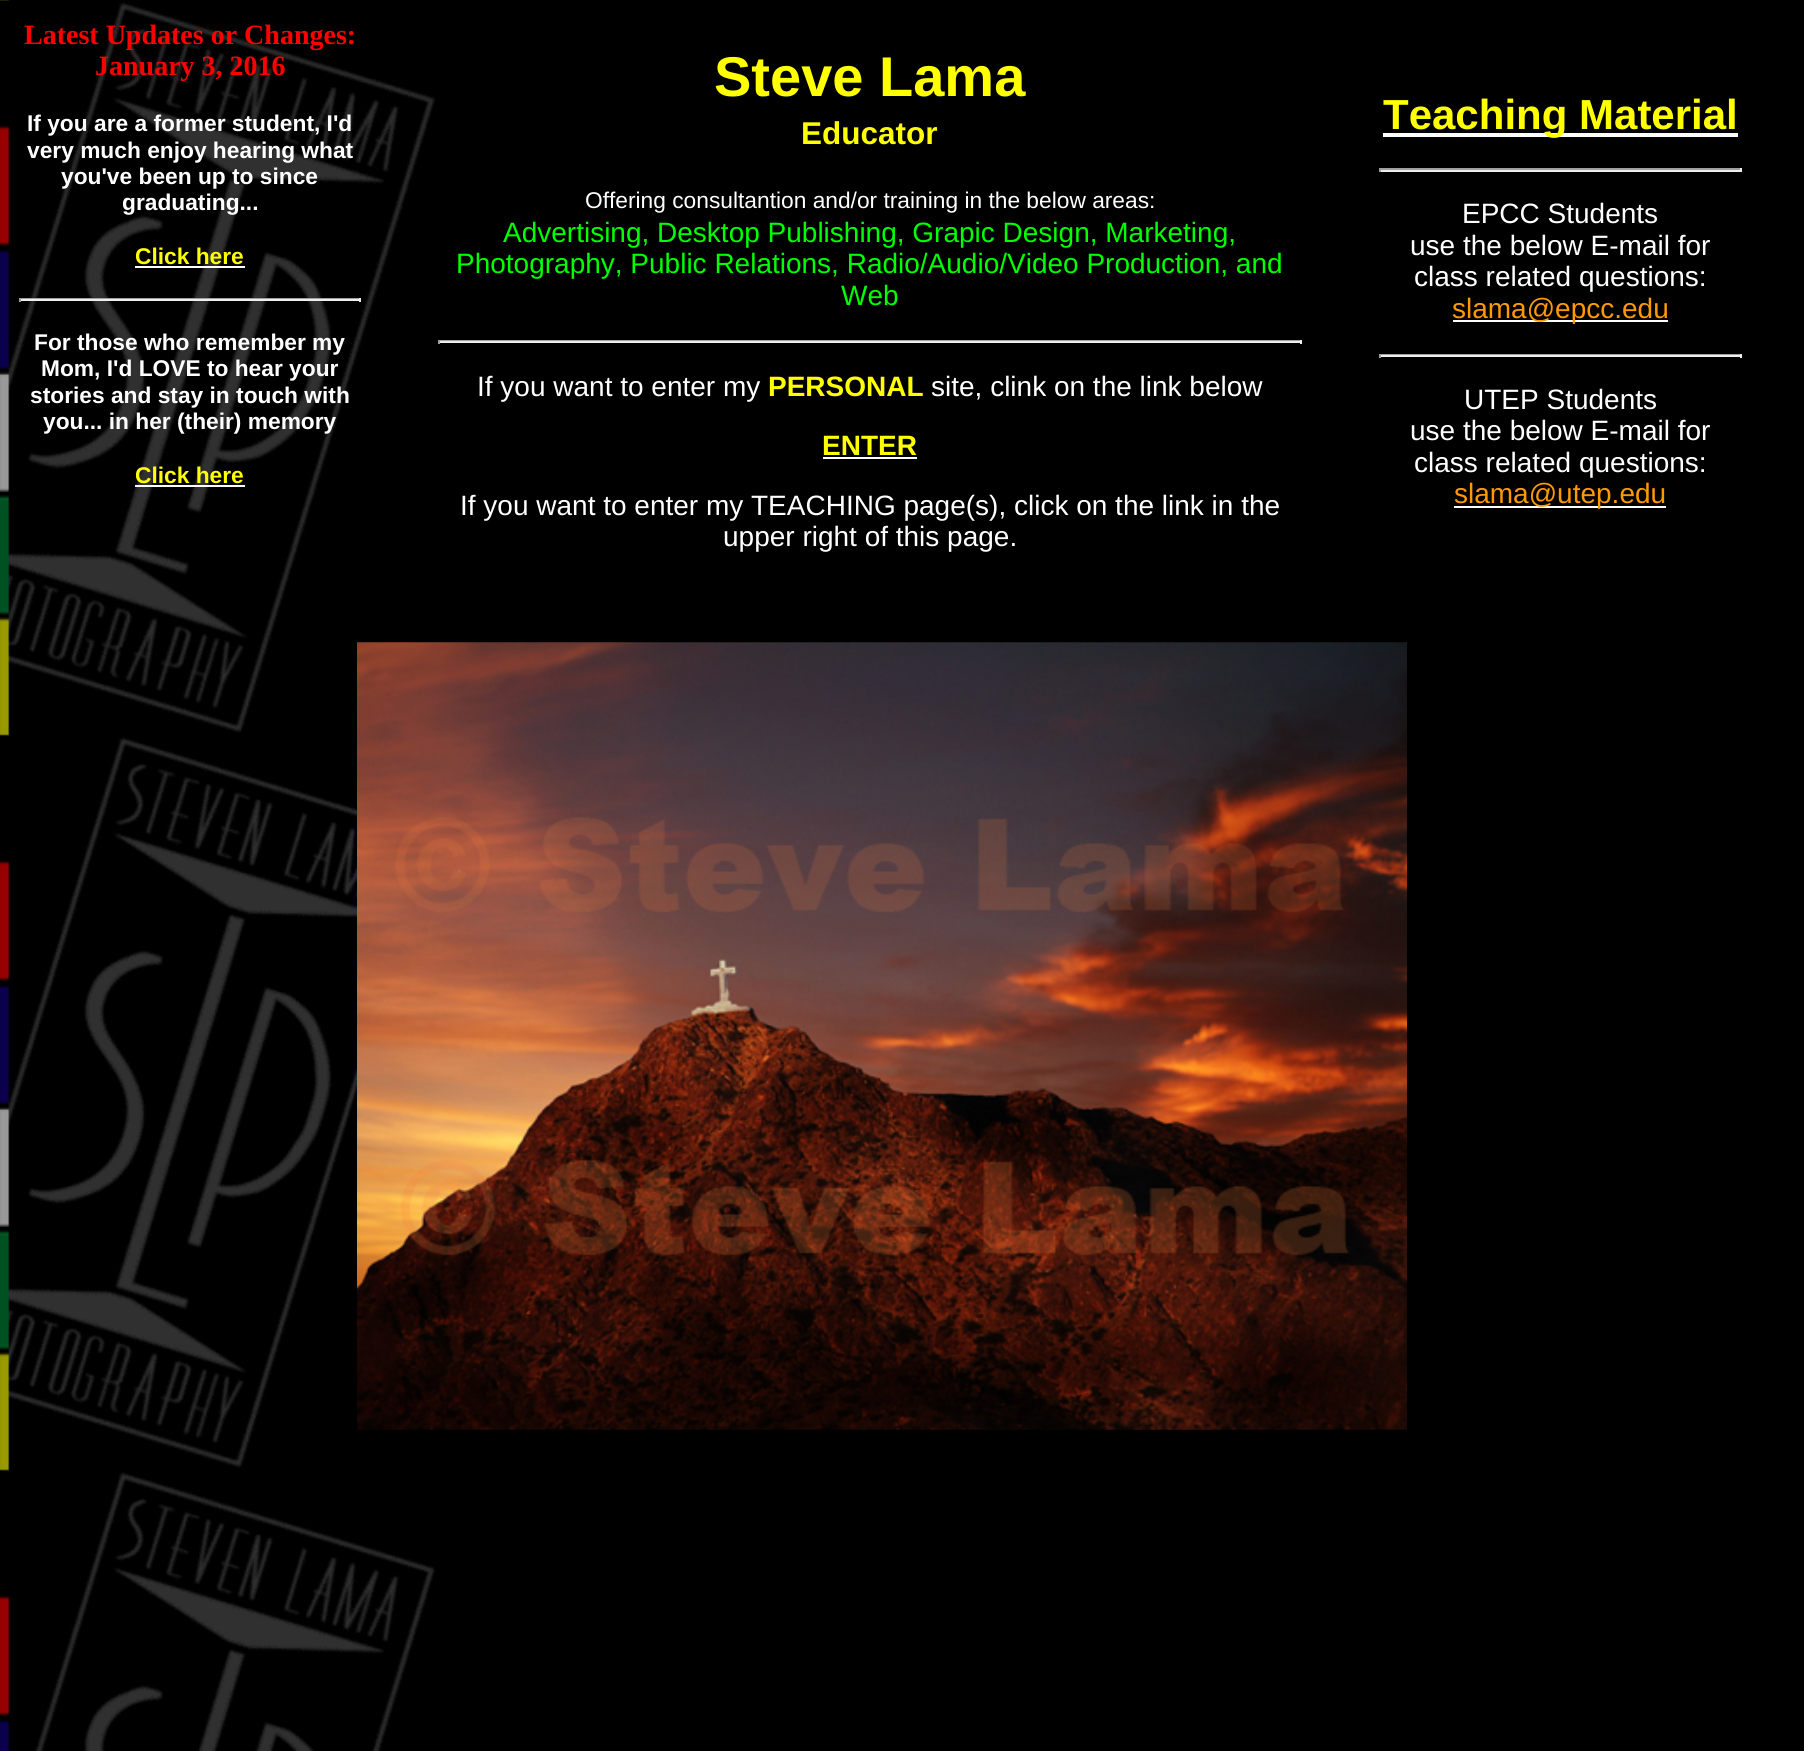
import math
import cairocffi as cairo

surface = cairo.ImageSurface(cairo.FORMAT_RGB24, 1804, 1751)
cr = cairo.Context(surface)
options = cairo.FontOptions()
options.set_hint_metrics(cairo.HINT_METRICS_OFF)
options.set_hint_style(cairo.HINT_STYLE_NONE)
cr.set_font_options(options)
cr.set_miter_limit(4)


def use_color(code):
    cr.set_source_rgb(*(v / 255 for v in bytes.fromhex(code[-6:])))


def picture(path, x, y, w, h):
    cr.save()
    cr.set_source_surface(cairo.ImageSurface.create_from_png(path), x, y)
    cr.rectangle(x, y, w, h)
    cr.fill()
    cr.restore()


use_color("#000000")
cr.paint()
picture("img1.png", 0, 0, 436, 1751)
cr.select_font_face("Liberation Serif", cairo.FONT_SLANT_NORMAL, cairo.FONT_WEIGHT_BOLD)
cr.set_font_size(28)
use_color("#ff0000")
cr.move_to(24, 44)
cr.show_text("Latest Updates or Changes:")
cr.move_to(95, 75)
cr.show_text("January 3, 2016")
cr.select_font_face("Liberation Sans", cairo.FONT_SLANT_NORMAL, cairo.FONT_WEIGHT_BOLD)
cr.set_font_size(22.75)
use_color("#ffffff")
cr.move_to(27, 131)
cr.show_text("If you are a former student, I'd")
cr.move_to(27, 158)
cr.show_text("very much enjoy hearing what")
cr.move_to(61, 184)
cr.show_text("you've been up to since")
cr.move_to(122, 210)
cr.show_text("graduating...")
use_color("#ffff00")
cr.move_to(135, 264)
cr.show_text("Click here")
use_color("#ffffff")
cr.rectangle(135, 266, 110, 2)
cr.fill()
use_color("#9f9f9f")
cr.rectangle(19, 298, 342, 1)
cr.fill()
use_color("#eeeeee")
cr.rectangle(359, 298, 2, 4)
cr.fill()
cr.rectangle(19, 299, 342, 2)
cr.fill()
use_color("#9f9f9f")
cr.rectangle(19, 298, 2, 4)
cr.fill()
use_color("#ffffff")
cr.move_to(34, 350)
cr.show_text("For those who remember my")
cr.move_to(41, 376)
cr.show_text("Mom, I'd LOVE to hear your")
cr.move_to(30, 403)
cr.show_text("stories and stay in touch with")
cr.move_to(43, 429)
cr.show_text("you... in her (their) memory")
use_color("#ffff00")
cr.move_to(135, 483)
cr.show_text("Click here")
use_color("#ffffff")
cr.rectangle(135, 485, 110, 2)
cr.fill()
cr.set_font_size(56)
use_color("#ffff00")
cr.move_to(714, 96)
cr.show_text("Steve Lama")
cr.set_font_size(31.5)
cr.move_to(801, 144)
cr.show_text("Educator")
cr.select_font_face("Liberation Sans")
cr.set_font_size(22.75)
use_color("#ffffff")
cr.move_to(585, 208)
cr.show_text("Offering consultantion and/or training in the below areas:")
cr.set_font_size(28)
use_color("#00ff00")
cr.move_to(503, 242)
cr.show_text("Advertising, Desktop Publishing, Grapic Design, Marketing,")
cr.move_to(456, 273)
cr.show_text("Photography, Public Relations, Radio/Audio/Video Production, and")
cr.move_to(841, 305)
cr.show_text("Web")
use_color("#9f9f9f")
cr.rectangle(438, 340, 864, 1)
cr.fill()
use_color("#eeeeee")
cr.rectangle(1300, 340, 2, 4)
cr.fill()
cr.rectangle(438, 341, 864, 2)
cr.fill()
use_color("#9f9f9f")
cr.rectangle(438, 340, 2, 4)
cr.fill()
use_color("#ffffff")
cr.move_to(477, 396)
cr.show_text("If you want to enter my")
cr.select_font_face("Liberation Sans", cairo.FONT_SLANT_NORMAL, cairo.FONT_WEIGHT_BOLD)
use_color("#ffff00")
cr.move_to(768, 396)
cr.show_text("PERSONAL")
cr.select_font_face("Liberation Sans")
use_color("#ffffff")
cr.move_to(931, 396)
cr.show_text("site, clink on the link below")
cr.select_font_face("Liberation Sans", cairo.FONT_SLANT_NORMAL, cairo.FONT_WEIGHT_BOLD)
use_color("#ffff00")
cr.move_to(822, 455)
cr.show_text("ENTER")
use_color("#ffffff")
cr.rectangle(823, 457, 94, 2)
cr.fill()
cr.select_font_face("Liberation Sans")
cr.move_to(460, 515)
cr.show_text("If you want to enter my TEACHING page(s), click on the link in the")
cr.move_to(723, 546)
cr.show_text("upper right of this page.")
cr.rectangle(1383, 133, 355, 4)
cr.fill()
cr.select_font_face("Liberation Sans", cairo.FONT_SLANT_NORMAL, cairo.FONT_WEIGHT_BOLD)
cr.set_font_size(42)
use_color("#ffff00")
cr.move_to(1383, 129)
cr.show_text("Teaching Material")
use_color("#9f9f9f")
cr.rectangle(1379, 168, 362, 2)
cr.fill()
use_color("#eeeeee")
cr.rectangle(1740, 168, 2, 4)
cr.fill()
cr.rectangle(1379, 170, 362, 2)
cr.fill()
use_color("#9f9f9f")
cr.rectangle(1379, 168, 2, 4)
cr.fill()
cr.select_font_face("Liberation Sans")
cr.set_font_size(28)
use_color("#ffffff")
cr.move_to(1462, 223)
cr.show_text("EPCC Students")
cr.move_to(1410, 255)
cr.show_text("use the below E-mail for")
cr.move_to(1414, 286)
cr.show_text("class related questions:")
cr.rectangle(1453, 320, 215, 2)
cr.fill()
use_color("#ff9900")
cr.move_to(1452, 318)
cr.show_text("slama@epcc.edu")
use_color("#9f9f9f")
cr.rectangle(1379, 354, 362, 1)
cr.fill()
use_color("#eeeeee")
cr.rectangle(1740, 354, 2, 4)
cr.fill()
cr.rectangle(1379, 355, 362, 2)
cr.fill()
use_color("#9f9f9f")
cr.rectangle(1379, 354, 2, 4)
cr.fill()
use_color("#ffffff")
cr.move_to(1464, 409)
cr.show_text("UTEP Students")
cr.move_to(1410, 440)
cr.show_text("use the below E-mail for")
cr.move_to(1414, 472)
cr.show_text("class related questions:")
cr.rectangle(1454, 506, 212, 2)
cr.fill()
use_color("#ff9900")
cr.move_to(1454, 503)
cr.show_text("slama@utep.edu")
picture("img2.png", 357, 642, 1050, 788)
surface.write_to_png("result.png")
